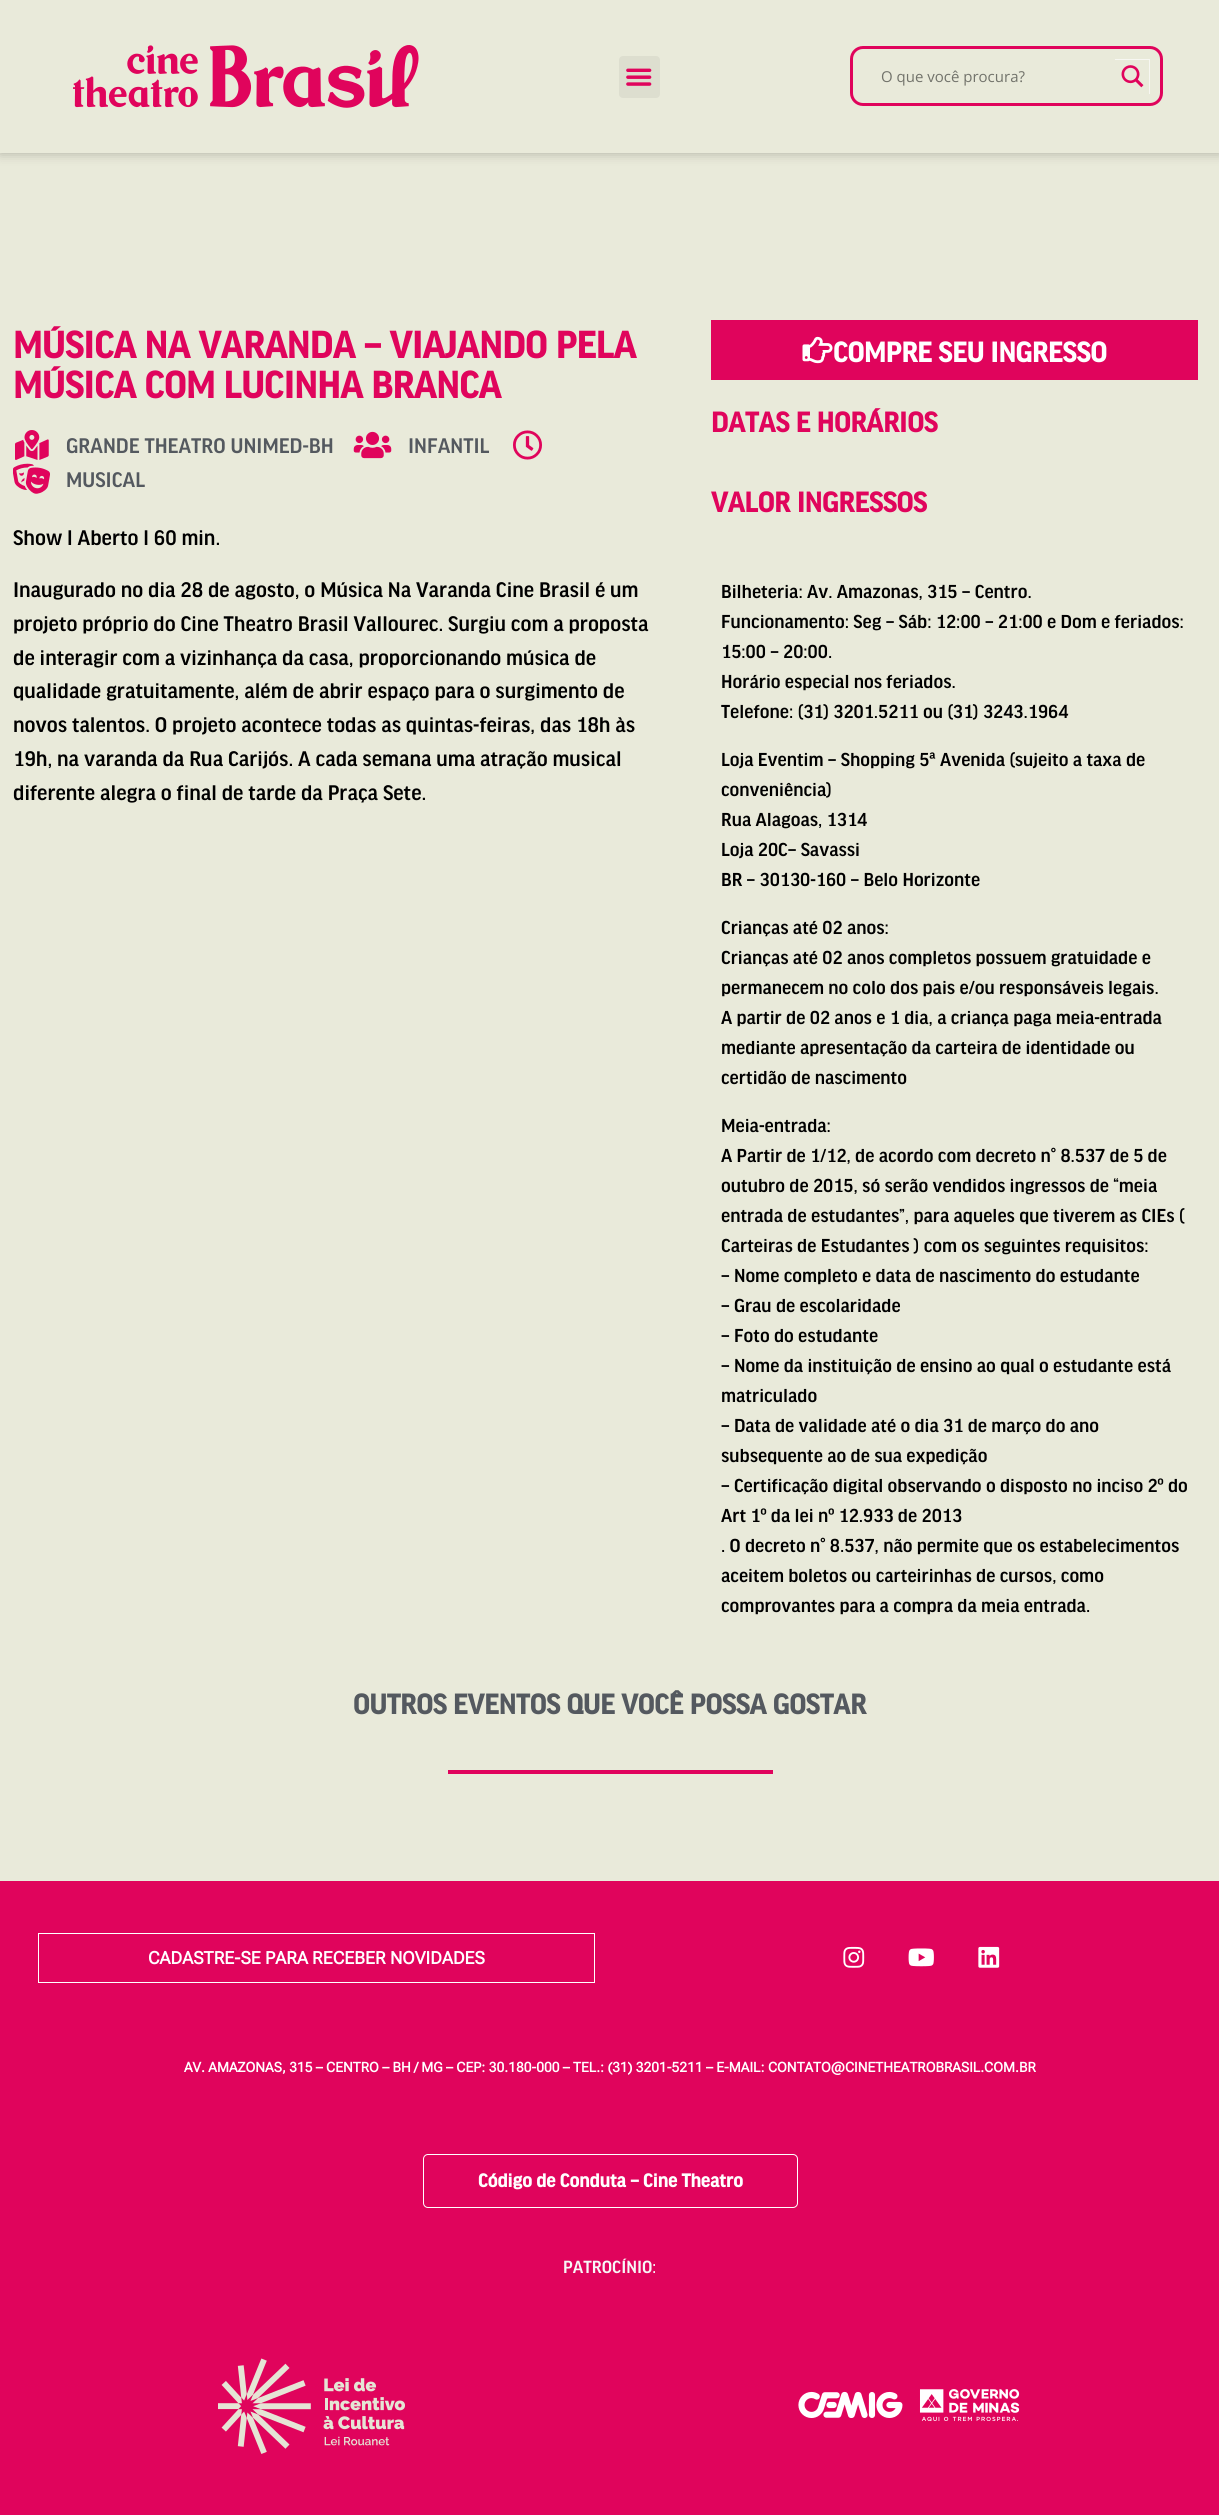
import math
import cairocffi as cairo

surface = cairo.ImageSurface(cairo.FORMAT_RGB24, 1219, 2515)
cr = cairo.Context(surface)
options = cairo.FontOptions()
options.set_hint_metrics(cairo.HINT_METRICS_OFF)
options.set_hint_style(cairo.HINT_STYLE_NONE)
cr.set_font_options(options)
cr.set_miter_limit(4)


def use_color(code):
    cr.set_source_rgb(*(v / 255 for v in bytes.fromhex(code[-6:])))


def round_rect(x, y, w, h, r):
    cr.new_sub_path()
    for i, (u, v) in enumerate([(x + w - r, y + h - r), (x + r, y + h - r), (x + r, y + r), (x + w - r, y + r)]):
        cr.arc(u, v, r, i * math.pi / 2, (i + 1) * math.pi / 2)
    cr.close_path()


def shadow(x, y, w, h, r, blur, alpha):
    cr.push_group_with_content(cairo.CONTENT_ALPHA)
    cr.set_operator(cairo.OPERATOR_SOURCE)
    for i in range(15, -16, -2):
        e = blur * i / 6
        if min(w, h) + 2 * e > 0:
            cr.set_source_rgba(0, 0, 0, alpha * math.erfc((i - 1) / 8.5) / 2)
            round_rect(x - e, y - e, w + 2 * e, h + 2 * e, max(0, min(r + e + blur * .6, min(w, h) / 2 + e)))
            cr.fill()
    cr.mask(cr.pop_group())


def picture(path, x, y, w, h):
    cr.save()
    cr.set_source_surface(cairo.ImageSurface.create_from_png(path), x, y)
    cr.rectangle(x, y, w, h)
    cr.fill()
    cr.restore()


use_color("#e9eada")
cr.paint()
use_color("#000000")
shadow(0, 0, 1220, 153, 0, 6, 0.26)
use_color("#e9eada")
cr.rectangle(0, 0, 1219, 153)
cr.fill()
picture("img1.png", 73, 45, 346, 63)
use_color("#dddecf")
round_rect(619, 56, 41, 42, 4)
cr.fill()
picture("img2.png", 626, 68, 26, 18)
round_rect(851.5, 47.5, 310, 57, 11.5)
use_color("#e0045c")
cr.set_line_width(3)
cr.stroke()
cr.select_font_face("Open Sans")
cr.set_font_size(15)
use_color("#72736b")
cr.move_to(881, 82)
cr.show_text("O que você procura?")
cr.save()
cr.rectangle(1115, 59, 35, 35)
cr.clip()
use_color("#f7f7f2")
cr.set_fill_rule(cairo.FILL_RULE_EVEN_ODD)
cr.new_path()
cr.move_to(991, 104)
cr.line_to(1132, 104)
cr.curve_to(1148, 104, 1160, 92, 1160, 76)
cr.curve_to(1160, 61, 1148, 49, 1132, 49)
cr.line_to(991, 49)
cr.close_path()
cr.move_to(1114, 60)
cr.line_to(1149, 60)
cr.line_to(1149, 95)
cr.line_to(1114, 95)
cr.close_path()
cr.fill()
cr.restore()
picture("img3.png", 1121, 65, 23, 23)
cr.select_font_face("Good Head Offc", cairo.FONT_SLANT_NORMAL, cairo.FONT_WEIGHT_BOLD)
cr.set_font_size(40)
use_color("#e0045c")
cr.move_to(13, 358)
cr.show_text("MÚSICA NA VARANDA – VIAJANDO PELA")
cr.move_to(13, 398)
cr.show_text("MÚSICA COM LUCINHA BRANCA")
picture("img4.png", 15, 430, 34, 30)
cr.select_font_face("Good Head Offc Medium")
cr.set_font_size(22.5)
use_color("#54595f")
cr.move_to(66, 453)
cr.show_text("GRANDE THEATRO UNIMED-BH")
picture("img5.png", 353, 431, 39, 28)
cr.move_to(408, 453)
cr.show_text("INFANTIL")
picture("img6.png", 513, 430, 29, 30)
picture("img7.png", 13, 463, 37, 31)
cr.move_to(66, 487)
cr.show_text("MUSICAL")
use_color("#000000")
cr.move_to(13, 545)
cr.show_text("Show l Aberto l 60 min.")
cr.move_to(13, 597)
cr.show_text("Inaugurado no dia 28 de agosto, o Música Na Varanda Cine Brasil é um")
cr.move_to(13, 631)
cr.show_text("projeto próprio do Cine Theatro Brasil Vallourec. Surgiu com a proposta")
cr.move_to(13, 665)
cr.show_text("de interagir com a vizinhança da casa, proporcionando música de")
cr.move_to(13, 698)
cr.show_text("qualidade gratuitamente, além de abrir espaço para o surgimento de")
cr.move_to(13, 732)
cr.show_text("novos talentos. O projeto acontece todas as quintas-feiras, das 18h às")
cr.move_to(13, 766)
cr.show_text("19h, na varanda da Rua Carijós. A cada semana uma atração musical")
cr.move_to(13, 800)
cr.show_text("diferente alegra o final de tarde da Praça Sete.")
use_color("#e0045c")
cr.rectangle(711, 320, 487, 60)
cr.fill()
picture("img8.png", 802, 336, 31, 28)
cr.select_font_face("Good Head Offc", cairo.FONT_SLANT_NORMAL, cairo.FONT_WEIGHT_BOLD)
cr.set_font_size(30)
use_color("#ffffff")
cr.move_to(833, 362)
cr.show_text("COMPRE SEU INGRESSO")
use_color("#e0045c")
cr.move_to(711, 432)
cr.show_text("DATAS E HORÁRIOS")
cr.move_to(711, 512)
cr.show_text("VALOR INGRESSOS")
cr.select_font_face("Good Head Offc Medium")
cr.set_font_size(20)
use_color("#000000")
cr.move_to(721, 598)
cr.show_text("Bilheteria: Av. Amazonas, 315 – Centro.")
cr.move_to(721, 628)
cr.show_text("Funcionamento: Seg – Sáb: 12:00 – 21:00 e Dom e feriados:")
cr.move_to(721, 658)
cr.show_text("15:00 – 20:00.")
cr.move_to(721, 688)
cr.show_text("Horário especial nos feriados.")
cr.move_to(721, 718)
cr.show_text("Telefone: (31) 3201.5211 ou (31) 3243.1964")
cr.move_to(721, 766)
cr.show_text("Loja Eventim – Shopping 5ª Avenida (sujeito a taxa de")
cr.move_to(721, 796)
cr.show_text("conveniência)")
cr.move_to(721, 826)
cr.show_text("Rua Alagoas, 1314")
cr.move_to(721, 856)
cr.show_text("Loja 20C– Savassi")
cr.move_to(721, 886)
cr.show_text("BR – 30130-160 – Belo Horizonte")
cr.move_to(721, 934)
cr.show_text("Crianças até 02 anos:")
cr.move_to(721, 964)
cr.show_text("Crianças até 02 anos completos possuem gratuidade e")
cr.move_to(721, 994)
cr.show_text("permanecem no colo dos pais e/ou responsáveis legais.")
cr.move_to(721, 1024)
cr.show_text("A partir de 02 anos e 1 dia, a criança paga meia-entrada")
cr.move_to(721, 1054)
cr.show_text("mediante apresentação da carteira de identidade ou")
cr.move_to(721, 1084)
cr.show_text("certidão de nascimento")
cr.move_to(721, 1132)
cr.show_text("Meia-entrada:")
cr.move_to(721, 1162)
cr.show_text("A Partir de 1/12, de acordo com decreto n° 8.537 de 5 de")
cr.move_to(721, 1192)
cr.show_text("outubro de 2015, só serão vendidos ingressos de “meia")
cr.move_to(721, 1222)
cr.show_text("entrada de estudantes”, para aqueles que tiverem as CIEs (")
cr.move_to(721, 1252)
cr.show_text("Carteiras de Estudantes ) com os seguintes requisitos:")
cr.move_to(721, 1282)
cr.show_text("– Nome completo e data de nascimento do estudante")
cr.move_to(721, 1312)
cr.show_text("– Grau de escolaridade")
cr.move_to(721, 1342)
cr.show_text("– Foto do estudante")
cr.move_to(721, 1372)
cr.show_text("– Nome da instituição de ensino ao qual o estudante está")
cr.move_to(721, 1402)
cr.show_text("matriculado")
cr.move_to(721, 1432)
cr.show_text("– Data de validade até o dia 31 de março do ano")
cr.move_to(721, 1462)
cr.show_text("subsequente ao de sua expedição")
cr.move_to(721, 1492)
cr.show_text("– Certificação digital observando o disposto no inciso 2º do")
cr.move_to(721, 1522)
cr.show_text("Art 1º da lei nº 12.933 de 2013")
cr.move_to(721, 1552)
cr.show_text(". O decreto n° 8.537, não permite que os estabelecimentos")
cr.move_to(721, 1582)
cr.show_text("aceitem boletos ou carteirinhas de cursos, como")
cr.move_to(721, 1612)
cr.show_text("comprovantes para a compra da meia entrada.")
cr.select_font_face("Good Head Offc", cairo.FONT_SLANT_NORMAL, cairo.FONT_WEIGHT_BOLD)
cr.set_font_size(30)
use_color("#54595f")
cr.move_to(353, 1714)
cr.show_text("OUTROS EVENTOS QUE VOCÊ POSSA GOSTAR")
use_color("#e0045c")
cr.rectangle(448, 1770, 325, 4)
cr.fill()
cr.rectangle(0, 1881, 1219, 634)
cr.fill()
cr.rectangle(38.5, 1933.5, 556, 49)
use_color("#ffffff")
cr.set_line_width(1)
cr.stroke()
cr.select_font_face("Roboto Flex", cairo.FONT_SLANT_NORMAL, cairo.FONT_WEIGHT_BOLD)
cr.set_font_size(17.5)
cr.move_to(148, 1964)
cr.show_text("CADASTRE-SE PARA RECEBER NOVIDADES")
picture("img9.png", 843, 1946, 22, 22)
picture("img10.png", 908, 1948, 26, 19)
picture("img11.png", 978, 1946, 22, 22)
cr.set_font_size(13.75)
cr.move_to(184, 2072)
cr.show_text("AV. AMAZONAS, 315 – CENTRO – BH / MG – CEP: 30.180-000 – TEL.: (31) 3201-5211 – E-MAIL: CONTATO@CINETHEATROBRASIL.COM.BR")
round_rect(423.5, 2154.5, 374, 53, 4.5)
cr.stroke()
cr.select_font_face("Good Head Offc", cairo.FONT_SLANT_NORMAL, cairo.FONT_WEIGHT_BOLD)
cr.set_font_size(20)
cr.move_to(478, 2187)
cr.show_text("Código de Conduta – Cine Theatro")
cr.select_font_face("Good Head Offc Medium")
cr.set_font_size(18.75)
use_color("#f7f7f7")
cr.move_to(563, 2273)
cr.show_text("PATROCÍNIO:")
picture("img12.png", 218, 2358, 187, 96)
picture("img13.png", 798, 2389, 222, 32)
surface.write_to_png("result.png")
